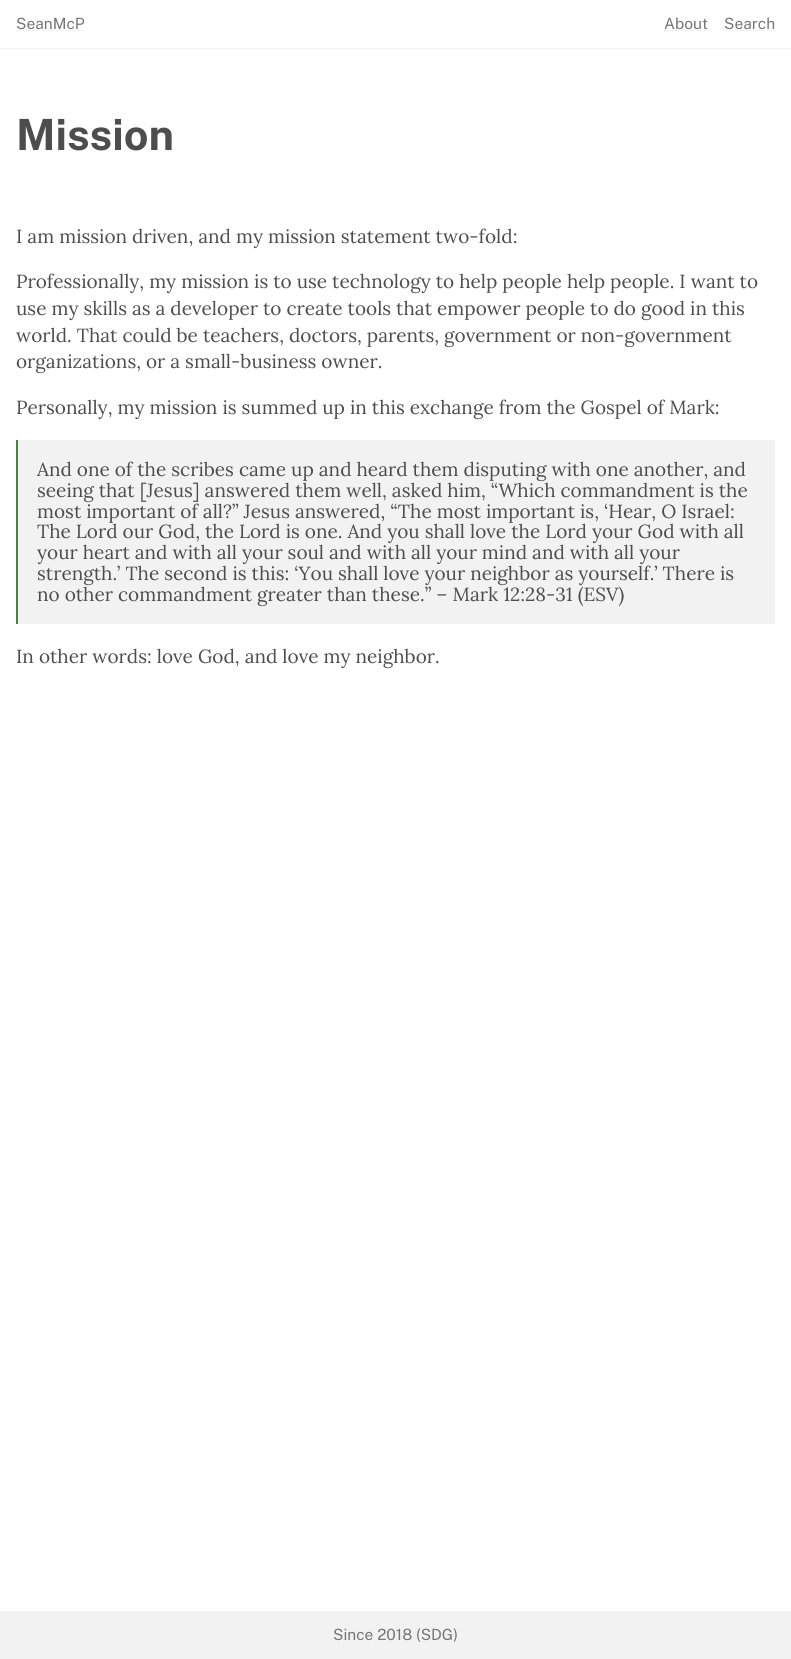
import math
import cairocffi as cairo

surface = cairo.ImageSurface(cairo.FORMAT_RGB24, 791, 1659)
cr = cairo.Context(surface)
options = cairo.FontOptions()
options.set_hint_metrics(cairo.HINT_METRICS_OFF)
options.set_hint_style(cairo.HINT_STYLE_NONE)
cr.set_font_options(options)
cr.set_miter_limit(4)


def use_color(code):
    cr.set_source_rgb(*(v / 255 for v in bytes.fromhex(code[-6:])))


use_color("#ffffff")
cr.paint()
use_color("#f2f2f2")
cr.rectangle(0, 48, 791, 1)
cr.fill()
cr.select_font_face("Public Sans Thin")
cr.set_font_size(15.5)
use_color("#757575")
cr.move_to(16, 29)
cr.show_text("SeanMcP")
use_color("#f2f2f2")
cr.rectangle(16, 30, 69, 1)
cr.fill()
use_color("#757575")
cr.move_to(664, 29)
cr.show_text("About")
use_color("#f2f2f2")
cr.rectangle(664, 30, 44, 1)
cr.fill()
use_color("#757575")
cr.move_to(724, 29)
cr.show_text("Search")
use_color("#f2f2f2")
cr.rectangle(724, 30, 51, 1)
cr.fill()
cr.select_font_face("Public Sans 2 Thin")
cr.set_font_size(43)
use_color("#4d4d4d")
cr.move_to(16, 150)
cr.show_text("Mission")
cr.select_font_face("Lora")
cr.set_font_size(19)
cr.move_to(16, 243)
cr.show_text("I am mission driven, and my mission statement two-fold:")
cr.move_to(16, 288)
cr.show_text("Professionally, my mission is to use technology to help people help people. I want to")
cr.move_to(16, 315)
cr.show_text("use my skills as a developer to create tools that empower people to do good in this")
cr.move_to(16, 342)
cr.show_text("world. That could be teachers, doctors, parents, government or non-government")
cr.move_to(16, 368)
cr.show_text("organizations, or a small-business owner.")
cr.move_to(16, 414)
cr.show_text("Personally, my mission is summed up in this exchange from the Gospel of Mark:")
use_color("#f2f2f2")
cr.rectangle(18, 440, 757, 184)
cr.fill()
use_color("#4a7e44")
cr.rectangle(16, 440, 2, 184)
cr.fill()
use_color("#4d4d4d")
cr.move_to(37, 476)
cr.show_text("And one of the scribes came up and heard them disputing with one another, and")
cr.move_to(37, 497)
cr.show_text("seeing that [Jesus] answered them well, asked him, “Which commandment is the")
cr.move_to(37, 518)
cr.show_text("most important of all?” Jesus answered, “The most important is, ‘Hear, O Israel:")
cr.move_to(37, 538)
cr.show_text("The Lord our God, the Lord is one. And you shall love the Lord your God with all")
cr.move_to(37, 559)
cr.show_text("your heart and with all your soul and with all your mind and with all your")
cr.move_to(37, 580)
cr.show_text("strength.’ The second is this: ‘You shall love your neighbor as yourself.’ There is")
cr.move_to(37, 601)
cr.show_text("no other commandment greater than these.” – Mark 12:28-31 (ESV)")
cr.move_to(16, 663)
cr.show_text("In other words: love God, and love my neighbor.")
use_color("#f2f2f2")
cr.rectangle(0, 1611, 791, 48)
cr.fill()
cr.select_font_face("Public Sans Thin")
cr.set_font_size(15.5)
use_color("#757575")
cr.move_to(333, 1640)
cr.show_text("Since 2018 (SDG)")
surface.write_to_png("result.png")
